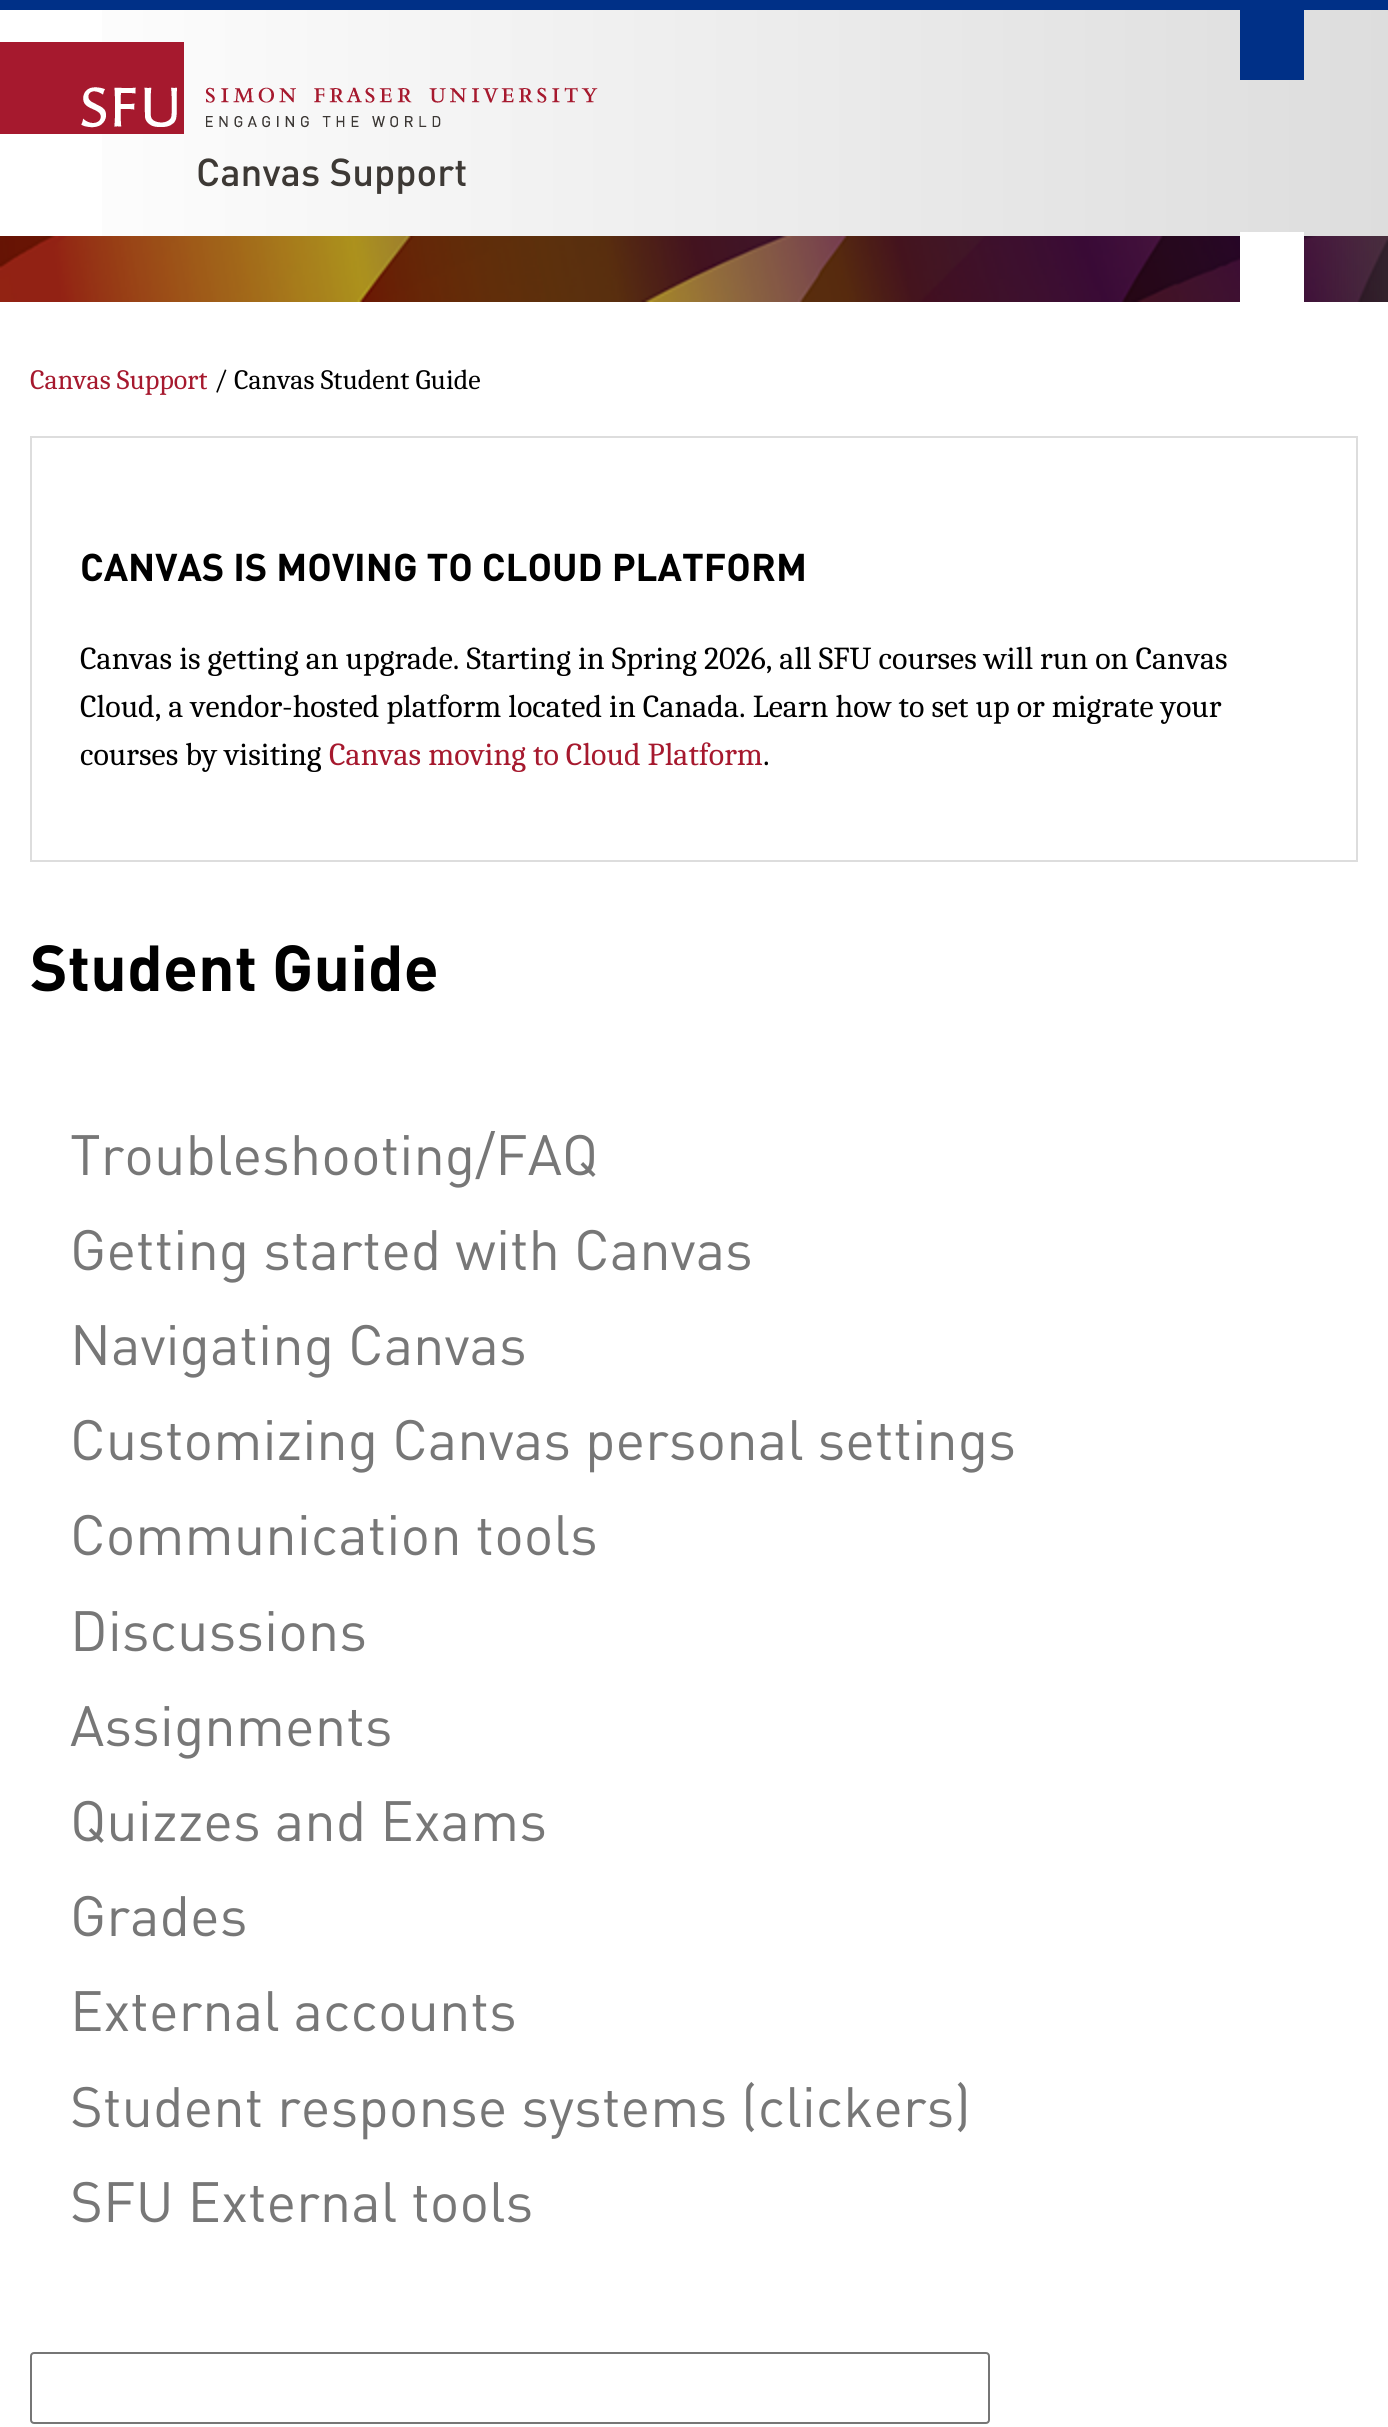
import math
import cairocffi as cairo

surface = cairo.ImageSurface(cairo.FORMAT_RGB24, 1388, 2427)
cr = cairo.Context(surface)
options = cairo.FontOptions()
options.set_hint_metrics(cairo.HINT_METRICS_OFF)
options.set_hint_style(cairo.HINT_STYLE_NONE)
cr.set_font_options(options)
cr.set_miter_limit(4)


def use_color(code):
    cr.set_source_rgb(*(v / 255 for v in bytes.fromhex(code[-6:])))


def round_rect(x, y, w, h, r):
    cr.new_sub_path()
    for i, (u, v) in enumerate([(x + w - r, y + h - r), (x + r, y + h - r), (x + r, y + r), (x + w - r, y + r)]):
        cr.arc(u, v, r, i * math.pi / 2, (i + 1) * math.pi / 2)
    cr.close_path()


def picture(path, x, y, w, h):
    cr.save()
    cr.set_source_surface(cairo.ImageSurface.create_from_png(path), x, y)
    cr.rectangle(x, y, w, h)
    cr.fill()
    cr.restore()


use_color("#ffffff")
cr.paint()
gradient = cairo.LinearGradient(0, 123, 1388, 123)
gradient.add_color_stop_rgba(0, 1, 1, 1, 1)
gradient.add_color_stop_rgba(1, 0.867, 0.867, 0.867, 1)
cr.set_source(gradient)
cr.rectangle(102, 10, 1286, 226)
cr.fill()
use_color("#003087")
cr.rectangle(0, 0, 1388, 10)
cr.fill()
cr.rectangle(1240, 10, 64, 70)
cr.fill()
picture("img1.png", 0, 42, 598, 92)
cr.select_font_face("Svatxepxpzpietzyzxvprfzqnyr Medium")
cr.set_font_size(38.5)
use_color("#3d3935")
cr.move_to(196, 186)
cr.show_text("Canvas Support")
cr.rectangle(1304, 236, 84, 66)
cr.fill()
picture("img2.png", 0, 236, 1388, 66)
use_color("#ffffff")
cr.rectangle(1240, 232, 64, 70)
cr.fill()
cr.select_font_face("Caladea")
cr.set_font_size(28)
use_color("#a6192e")
cr.move_to(30, 389)
cr.show_text("Canvas Support")
use_color("#000000")
cr.move_to(214, 389)
cr.show_text("/ Canvas Student Guide")
cr.rectangle(31, 437, 1326, 424)
use_color("#dddddd")
cr.stroke()
cr.select_font_face("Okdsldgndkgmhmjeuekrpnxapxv", cairo.FONT_SLANT_NORMAL, cairo.FONT_WEIGHT_BOLD)
cr.set_font_size(38.2)
use_color("#000000")
cr.move_to(80, 581)
cr.show_text("CANVAS IS MOVING TO CLOUD PLATFORM")
cr.select_font_face("Caladea")
cr.set_font_size(32)
cr.move_to(80, 669)
cr.show_text("Canvas is getting an upgrade. Starting in Spring 2026, all SFU courses will run on Canvas")
cr.move_to(80, 717)
cr.show_text("Cloud, a vendor-hosted platform located in Canada. Learn how to set up or migrate your")
cr.move_to(80, 765)
cr.show_text("courses by visiting")
use_color("#a6192e")
cr.move_to(329, 765)
cr.show_text("Canvas moving to Cloud Platform")
use_color("#000000")
cr.move_to(763, 765)
cr.show_text(".")
cr.select_font_face("Okdsldgndkgmhmjeuekrpnxapxv", cairo.FONT_SLANT_NORMAL, cairo.FONT_WEIGHT_BOLD)
cr.set_font_size(64)
cr.move_to(30, 991)
cr.show_text("Student Guide")
cr.select_font_face("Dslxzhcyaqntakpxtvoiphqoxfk")
cr.set_font_size(56)
use_color("#777777")
cr.move_to(70, 1175)
cr.show_text("Troubleshooting/FAQ")
cr.move_to(70, 1270)
cr.show_text("Getting started with Canvas")
cr.move_to(70, 1365)
cr.show_text("Navigating Canvas")
cr.move_to(70, 1460)
cr.show_text("Customizing Canvas personal settings")
cr.move_to(70, 1555)
cr.show_text("Communication tools")
cr.move_to(70, 1651)
cr.show_text("Discussions")
cr.move_to(70, 1746)
cr.show_text("Assignments")
cr.move_to(70, 1841)
cr.show_text("Quizzes and Exams")
cr.move_to(70, 1936)
cr.show_text("Grades")
cr.move_to(70, 2031)
cr.show_text("External accounts")
cr.move_to(70, 2127)
cr.show_text("Student response systems (clickers)")
cr.move_to(70, 2222)
cr.show_text("SFU External tools")
round_rect(31, 2353, 958, 70, 3)
use_color("#767676")
cr.stroke()
surface.write_to_png("result.png")
